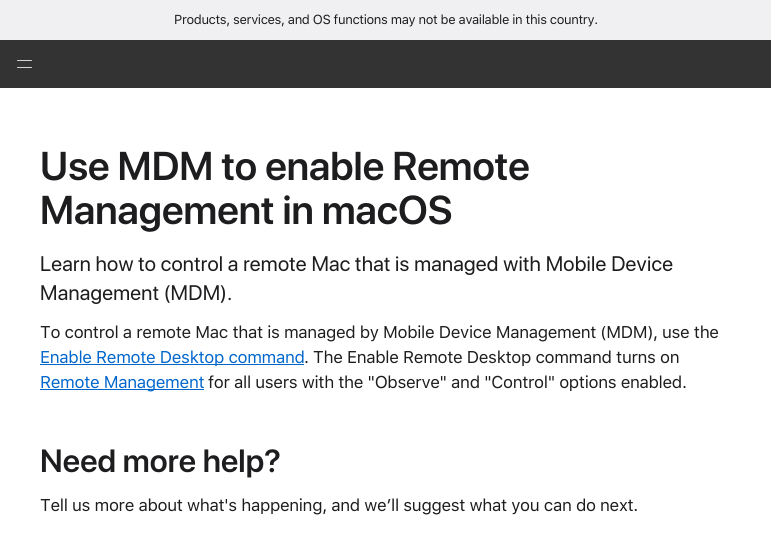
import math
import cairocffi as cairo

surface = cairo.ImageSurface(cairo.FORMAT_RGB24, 771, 536)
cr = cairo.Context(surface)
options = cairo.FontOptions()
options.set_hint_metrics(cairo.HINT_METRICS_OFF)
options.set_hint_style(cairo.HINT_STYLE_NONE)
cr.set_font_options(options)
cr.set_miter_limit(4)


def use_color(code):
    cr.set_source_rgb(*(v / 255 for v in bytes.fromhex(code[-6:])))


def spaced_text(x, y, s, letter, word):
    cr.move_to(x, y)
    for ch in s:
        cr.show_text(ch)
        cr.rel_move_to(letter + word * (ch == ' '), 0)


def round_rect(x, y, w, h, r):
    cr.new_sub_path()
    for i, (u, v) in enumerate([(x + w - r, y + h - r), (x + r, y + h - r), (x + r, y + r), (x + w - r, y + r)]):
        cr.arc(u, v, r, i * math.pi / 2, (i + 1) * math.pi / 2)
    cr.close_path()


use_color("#ffffff")
cr.paint()
use_color("#f0f0f2")
cr.rectangle(0, 0, 771, 40)
cr.fill()
cr.select_font_face("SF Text")
cr.set_font_size(13)
use_color("#1d1d1f")
spaced_text(174, 24, "Products, services, and OS functions may not be available in this country.", -0.37, 0)
use_color("#333333")
cr.rectangle(0, 40, 771, 48)
cr.fill()
use_color("#d6d6d6")
round_rect(17, 60, 15, 1, 0.5)
cr.fill()
round_rect(17, 67, 15, 1, 0.5)
cr.fill()
cr.select_font_face("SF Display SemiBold")
cr.set_font_size(40)
use_color("#1d1d1f")
cr.move_to(40, 180)
cr.show_text("Use MDM to enable Remote")
cr.move_to(40, 224)
cr.show_text("Management in macOS")
cr.select_font_face("SF Display")
cr.set_font_size(21)
spaced_text(40, 271, "Learn how to control a remote Mac that is managed with Mobile Device", 0.23, 0)
spaced_text(40, 300, "Management (MDM).", 0.23, 0)
cr.select_font_face("SF Text")
cr.set_font_size(17)
spaced_text(40, 338, "To control a remote Mac that is managed by Mobile Device Management (MDM), use the", -0.37, 0)
use_color("#0066cc")
cr.rectangle(40, 364, 264, 1)
cr.fill()
spaced_text(40, 363, "Enable Remote Desktop command", -0.37, 0)
use_color("#1d1d1f")
spaced_text(304, 363, ". The Enable Remote Desktop command turns on", -0.37, 0)
use_color("#0066cc")
cr.rectangle(40, 389, 164, 1)
cr.fill()
spaced_text(40, 388, "Remote Management", -0.37, 0)
use_color("#1d1d1f")
spaced_text(208, 388, "for all users with the \"Observe\" and \"Control\" options enabled.", -0.37, 0)
cr.select_font_face("SF Display SemiBold")
cr.set_font_size(32)
spaced_text(40, 472, "Need more help?", 0.1, 0)
cr.select_font_face("SF Text")
cr.set_font_size(17)
spaced_text(40, 511, "Tell us more about what's happening, and we’ll suggest what you can do next.", -0.37, 0)
surface.write_to_png("result.png")
